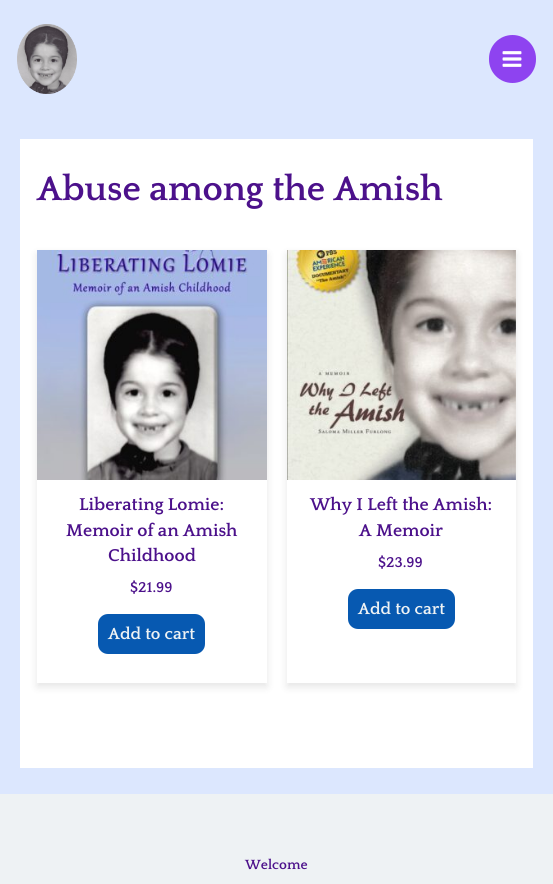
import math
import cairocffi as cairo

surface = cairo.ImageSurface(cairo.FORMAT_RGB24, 553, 884)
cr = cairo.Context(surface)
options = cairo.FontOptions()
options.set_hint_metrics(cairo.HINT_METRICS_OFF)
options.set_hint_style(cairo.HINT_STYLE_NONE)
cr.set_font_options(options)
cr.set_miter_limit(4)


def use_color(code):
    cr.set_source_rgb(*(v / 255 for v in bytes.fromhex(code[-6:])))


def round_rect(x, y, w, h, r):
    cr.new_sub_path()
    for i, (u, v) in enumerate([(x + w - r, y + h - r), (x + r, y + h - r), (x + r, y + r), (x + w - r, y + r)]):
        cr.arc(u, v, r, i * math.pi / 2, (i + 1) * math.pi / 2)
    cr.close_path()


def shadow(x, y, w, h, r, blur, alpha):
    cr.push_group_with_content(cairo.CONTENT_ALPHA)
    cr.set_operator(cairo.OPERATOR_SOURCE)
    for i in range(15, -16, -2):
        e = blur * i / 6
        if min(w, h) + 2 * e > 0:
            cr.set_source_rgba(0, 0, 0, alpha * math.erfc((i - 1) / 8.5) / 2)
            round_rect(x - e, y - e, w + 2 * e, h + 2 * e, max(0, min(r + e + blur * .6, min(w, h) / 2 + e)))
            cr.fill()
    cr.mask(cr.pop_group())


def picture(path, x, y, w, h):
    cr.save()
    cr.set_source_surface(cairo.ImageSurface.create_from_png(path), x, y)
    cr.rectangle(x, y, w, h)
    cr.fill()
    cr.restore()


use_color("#dce7fe")
cr.paint()
picture("img1.png", 17, 24, 60, 70)
use_color("#8e43f0")
round_rect(489, 35, 47, 48, 23.5)
cr.fill()
picture("img2.png", 502, 51, 20, 16)
use_color("#ffffff")
cr.rectangle(20, 139, 513, 629)
cr.fill()
cr.select_font_face("Quattrocento", cairo.FONT_SLANT_NORMAL, cairo.FONT_WEIGHT_BOLD)
cr.set_font_size(36)
use_color("#4c118b")
cr.move_to(37, 200)
cr.show_text("Abuse among the Amish")
cr.save()
cr.set_fill_rule(cairo.FILL_RULE_EVEN_ODD)
cr.new_path()
cr.move_to(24, 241)
cr.line_to(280, 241)
cr.line_to(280, 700)
cr.line_to(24, 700)
cr.close_path()
cr.move_to(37, 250)
cr.line_to(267, 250)
cr.line_to(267, 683)
cr.line_to(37, 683)
cr.close_path()
cr.clip()
use_color("#000000")
shadow(37, 254, 230, 433, 0, 4, 0.1)
cr.restore()
picture("img3.png", 37, 250, 230, 230)
cr.set_font_size(18)
cr.move_to(79, 510)
cr.show_text("Liberating Lomie:")
cr.move_to(66, 536)
cr.show_text("Memoir of an Amish")
cr.move_to(108, 561)
cr.show_text("Childhood")
cr.set_font_size(15)
cr.move_to(130, 592)
cr.show_text("$21.99")
use_color("#0759b1")
round_rect(98, 614, 107, 40, 10)
cr.fill()
cr.set_font_size(17)
use_color("#eef2f4")
cr.move_to(108, 639)
cr.show_text("Add to cart")
cr.save()
cr.set_fill_rule(cairo.FILL_RULE_EVEN_ODD)
cr.new_path()
cr.move_to(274, 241)
cr.line_to(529, 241)
cr.line_to(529, 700)
cr.line_to(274, 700)
cr.close_path()
cr.move_to(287, 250)
cr.line_to(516, 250)
cr.line_to(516, 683)
cr.line_to(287, 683)
cr.close_path()
cr.clip()
use_color("#000000")
shadow(287, 254, 229, 433, 0, 4, 0.1)
cr.restore()
picture("img4.png", 287, 250, 229, 230)
cr.set_font_size(18)
use_color("#4c118b")
cr.move_to(310, 510)
cr.show_text("Why I Left the Amish:")
cr.move_to(359, 536)
cr.show_text("A Memoir")
cr.set_font_size(15)
cr.move_to(378, 567)
cr.show_text("$23.99")
use_color("#0759b1")
round_rect(348, 589, 107, 40, 10)
cr.fill()
cr.set_font_size(17)
use_color("#eef2f4")
cr.move_to(358, 614)
cr.show_text("Add to cart")
cr.rectangle(0, 794, 553, 90)
cr.fill()
cr.set_font_size(14)
use_color("#4c118b")
cr.move_to(245, 869)
cr.show_text("Welcome")
surface.write_to_png("result.png")
